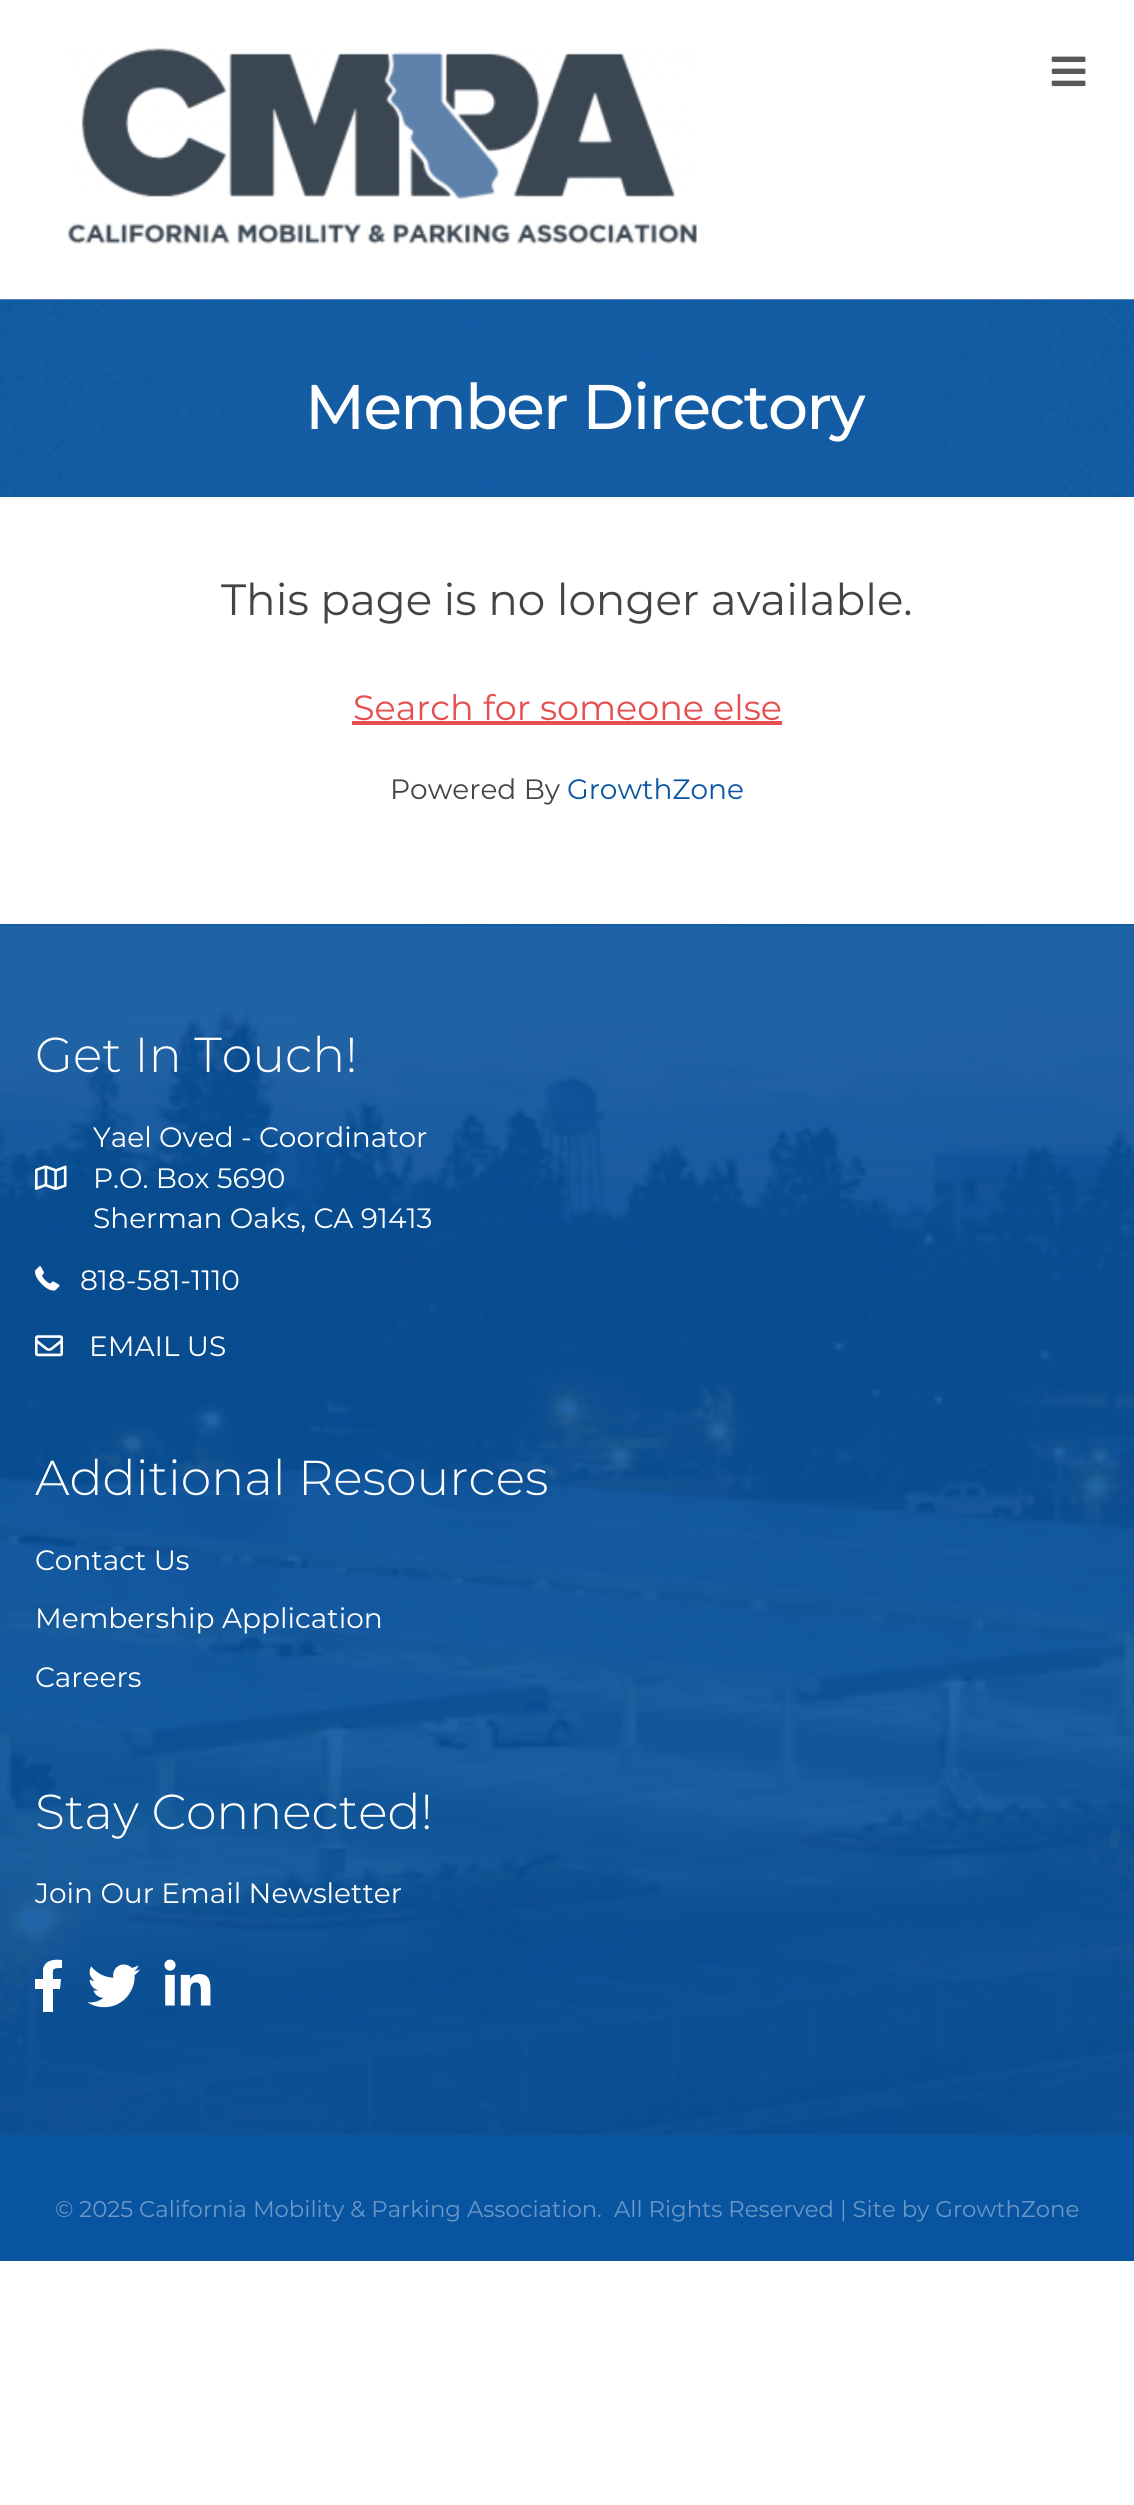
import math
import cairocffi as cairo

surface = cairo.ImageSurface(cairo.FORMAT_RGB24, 1134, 2505)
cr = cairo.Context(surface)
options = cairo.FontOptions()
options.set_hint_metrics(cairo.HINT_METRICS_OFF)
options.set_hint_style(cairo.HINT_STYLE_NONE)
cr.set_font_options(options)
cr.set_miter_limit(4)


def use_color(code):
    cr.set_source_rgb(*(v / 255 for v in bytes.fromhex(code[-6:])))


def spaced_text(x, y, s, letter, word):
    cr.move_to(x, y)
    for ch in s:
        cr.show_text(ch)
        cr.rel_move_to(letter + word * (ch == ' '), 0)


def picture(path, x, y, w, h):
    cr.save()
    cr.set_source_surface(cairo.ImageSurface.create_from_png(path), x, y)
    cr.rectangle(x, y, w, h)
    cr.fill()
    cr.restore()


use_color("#ffffff")
cr.paint()
picture("img1.png", 67, 47, 630, 197)
picture("img2.png", 1051, 56, 35, 31)
picture("img3.png", 0, 299, 1134, 198)
cr.select_font_face("Montserrat Medium")
cr.set_font_size(63)
use_color("#ffffff")
spaced_text(305, 429, "Member Directory", -1.75, 0)
cr.select_font_face("Montserrat")
cr.set_font_size(43.75)
use_color("#444444")
cr.move_to(221, 615)
cr.show_text("This page is no longer available.")
cr.set_font_size(35)
use_color("#e54f4f")
cr.move_to(353, 720)
cr.show_text("Search for someone else")
cr.rectangle(352, 721, 430, 4)
cr.fill()
cr.set_font_size(28)
use_color("#444444")
cr.move_to(390, 799)
cr.show_text("Powered By")
use_color("#0854a0")
cr.move_to(567, 799)
cr.show_text("GrowthZone")
picture("img4.png", 0, 924, 1134, 1211)
cr.select_font_face("Montserrat Light")
cr.set_font_size(49)
use_color("#ffffff")
cr.move_to(35, 1072)
cr.show_text("Get In Touch!")
picture("img5.png", 35, 1165, 32, 25)
cr.select_font_face("Montserrat")
cr.set_font_size(28)
cr.move_to(93, 1147)
cr.show_text("Yael Oved - Coordinator")
cr.move_to(93, 1188)
cr.show_text("P.O. Box 5690")
cr.move_to(93, 1228)
cr.show_text("Sherman Oaks, CA 91413")
picture("img6.png", 35, 1266, 25, 25)
cr.move_to(80, 1290)
cr.show_text("818-581-1110")
picture("img7.png", 35, 1335, 28, 22)
cr.move_to(89, 1356)
cr.show_text("EMAIL US")
cr.select_font_face("Montserrat Light")
cr.set_font_size(49)
cr.move_to(35, 1495)
cr.show_text("Additional Resources")
cr.select_font_face("Montserrat")
cr.set_font_size(28)
cr.move_to(35, 1570)
cr.show_text("Contact Us")
cr.move_to(35, 1628)
cr.show_text("Membership Application")
cr.move_to(35, 1687)
cr.show_text("Careers")
cr.select_font_face("Montserrat Light")
cr.set_font_size(49)
cr.move_to(35, 1829)
cr.show_text("Stay Connected!")
cr.select_font_face("Montserrat")
cr.set_font_size(28)
cr.move_to(35, 1903)
cr.show_text("Join Our Email Newsletter")
cr.new_path()
cr.move_to(43, 2012)
cr.line_to(43, 1989)
cr.line_to(35, 1989)
cr.line_to(35, 1979)
cr.line_to(43, 1979)
cr.line_to(43, 1969)
cr.curve_to(45, 1960, 54, 1959, 62, 1960)
cr.line_to(62, 1968)
cr.curve_to(51, 1968, 53, 1969, 53, 1979)
cr.line_to(61, 1979)
cr.line_to(60, 1989)
cr.line_to(53, 1989)
cr.line_to(53, 2012)
cr.close_path()
cr.fill()
picture("img8.png", 87, 1964, 53, 44)
picture("img9.png", 164, 1959, 47, 47)
use_color("#0854a0")
cr.rectangle(0, 2135, 1134, 126)
cr.fill()
cr.set_font_size(22.75)
use_color("#6b98c6")
cr.move_to(55, 2217)
cr.show_text("© 2025 California Mobility & Parking Association.")
cr.move_to(614, 2217)
cr.show_text("All Rights Reserved | Site by GrowthZone")
surface.write_to_png("result.png")
